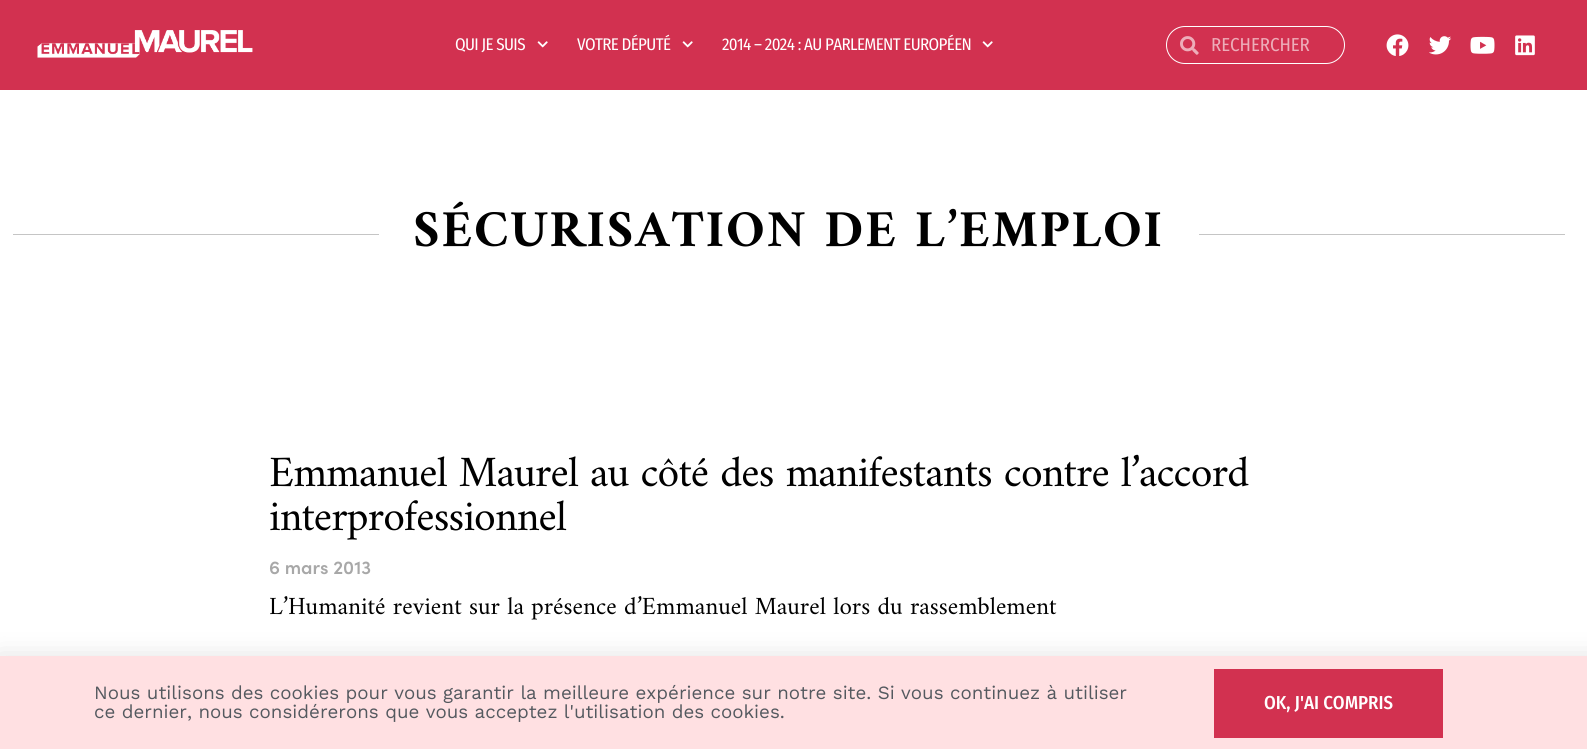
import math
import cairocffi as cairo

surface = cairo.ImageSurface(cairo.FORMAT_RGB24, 1587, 749)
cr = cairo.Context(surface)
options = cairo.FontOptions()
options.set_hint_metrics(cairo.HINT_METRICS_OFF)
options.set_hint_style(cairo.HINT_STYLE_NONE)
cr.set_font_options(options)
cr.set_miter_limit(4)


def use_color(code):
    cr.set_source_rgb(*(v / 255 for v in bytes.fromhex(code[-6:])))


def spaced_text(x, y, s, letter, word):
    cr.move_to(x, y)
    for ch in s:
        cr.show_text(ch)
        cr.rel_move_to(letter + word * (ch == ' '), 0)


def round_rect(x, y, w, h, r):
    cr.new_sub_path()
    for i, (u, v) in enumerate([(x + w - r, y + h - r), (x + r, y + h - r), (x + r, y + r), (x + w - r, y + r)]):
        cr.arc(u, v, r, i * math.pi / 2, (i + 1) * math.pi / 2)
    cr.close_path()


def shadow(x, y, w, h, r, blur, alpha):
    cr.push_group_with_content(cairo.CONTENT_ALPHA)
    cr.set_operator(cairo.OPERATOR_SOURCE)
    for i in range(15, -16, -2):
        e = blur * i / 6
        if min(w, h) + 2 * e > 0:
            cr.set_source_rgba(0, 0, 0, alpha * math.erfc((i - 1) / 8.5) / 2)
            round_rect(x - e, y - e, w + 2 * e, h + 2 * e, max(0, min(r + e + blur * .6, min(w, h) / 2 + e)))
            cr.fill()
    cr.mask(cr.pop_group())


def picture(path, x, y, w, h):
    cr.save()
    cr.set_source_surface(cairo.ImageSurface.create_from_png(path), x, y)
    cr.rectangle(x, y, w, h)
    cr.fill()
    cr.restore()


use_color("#ffffff")
cr.paint()
use_color("#d23150")
cr.rectangle(0, 0, 1587, 90)
cr.fill()
picture("img1.png", 37, 30, 216, 28)
cr.select_font_face("Fira Sans Condensed")
cr.set_font_size(16.9)
use_color("#ffffff")
spaced_text(455, 50, "QUI JE SUIS", -0.6, 0)
picture("img2.png", 537, 41, 11, 7)
spaced_text(577, 50, "VOTRE DÉPUTÉ", -0.6, 0)
picture("img2.png", 682, 41, 11, 7)
spaced_text(722, 50, "2014 – 2024 : AU PARLEMENT EUROPÉEN", -0.6, 0)
picture("img2.png", 982, 41, 11, 7)
round_rect(1166.5, 26.5, 178, 37, 18.5)
cr.set_line_width(1)
cr.stroke()
picture("img3.png", 1180, 36, 19, 19)
cr.set_font_size(18.75)
use_color("#edadb9")
cr.move_to(1211, 51)
cr.show_text("RECHERCHER")
picture("img4.png", 1386, 34, 23, 22)
picture("img5.png", 1429, 36, 23, 19)
picture("img6.png", 1470, 36, 25, 18)
picture("img7.png", 1515, 35, 20, 21)
use_color("#c5c5c5")
cr.rectangle(13, 234, 366, 1)
cr.fill()
cr.select_font_face("Amiri", cairo.FONT_SLANT_NORMAL, cairo.FONT_WEIGHT_BOLD)
cr.set_font_size(52.25)
use_color("#000000")
spaced_text(413, 246, "SÉCURISATION DE L’EMPLOI", 1.9, 0)
use_color("#c5c5c5")
cr.rectangle(1199, 234, 366, 1)
cr.fill()
cr.select_font_face("Amiri")
cr.set_font_size(43.75)
use_color("#000000")
spaced_text(269, 486, "Emmanuel Maurel au côté des manifestants contre l’accord", -0.88, 0)
spaced_text(269, 530, "interprofessionnel", -0.88, 0)
cr.select_font_face("Sofia SemiBold")
cr.set_font_size(18.75)
use_color("#a8a8a8")
cr.move_to(269, 574)
cr.show_text("6 mars 2013")
cr.select_font_face("Amiri")
cr.set_font_size(25)
use_color("#000000")
cr.move_to(269, 614)
cr.show_text("L’Humanité revient sur la présence d’Emmanuel Maurel lors du rassemblement")
use_color("#000000")
shadow(-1, 663, 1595, 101, 0, 14.5, 0.2)
use_color("#ffe0e2")
cr.rectangle(0, 656, 1587, 93)
cr.fill()
cr.select_font_face("Work Sans")
cr.set_font_size(18.75)
use_color("#54595f")
cr.move_to(94, 699)
cr.show_text("Nous utilisons des cookies pour vous garantir la meilleure expérience sur notre site. Si vous continuez à utiliser")
cr.move_to(94, 718)
cr.show_text("ce dernier, nous considérerons que vous acceptez l'utilisation des cookies.")
use_color("#d23150")
cr.rectangle(1214, 669, 229, 69)
cr.fill()
cr.select_font_face("Fira Sans Condensed Medium")
use_color("#ffffff")
cr.move_to(1264, 709)
cr.show_text("OK, J'AI COMPRIS")
surface.write_to_png("result.png")
